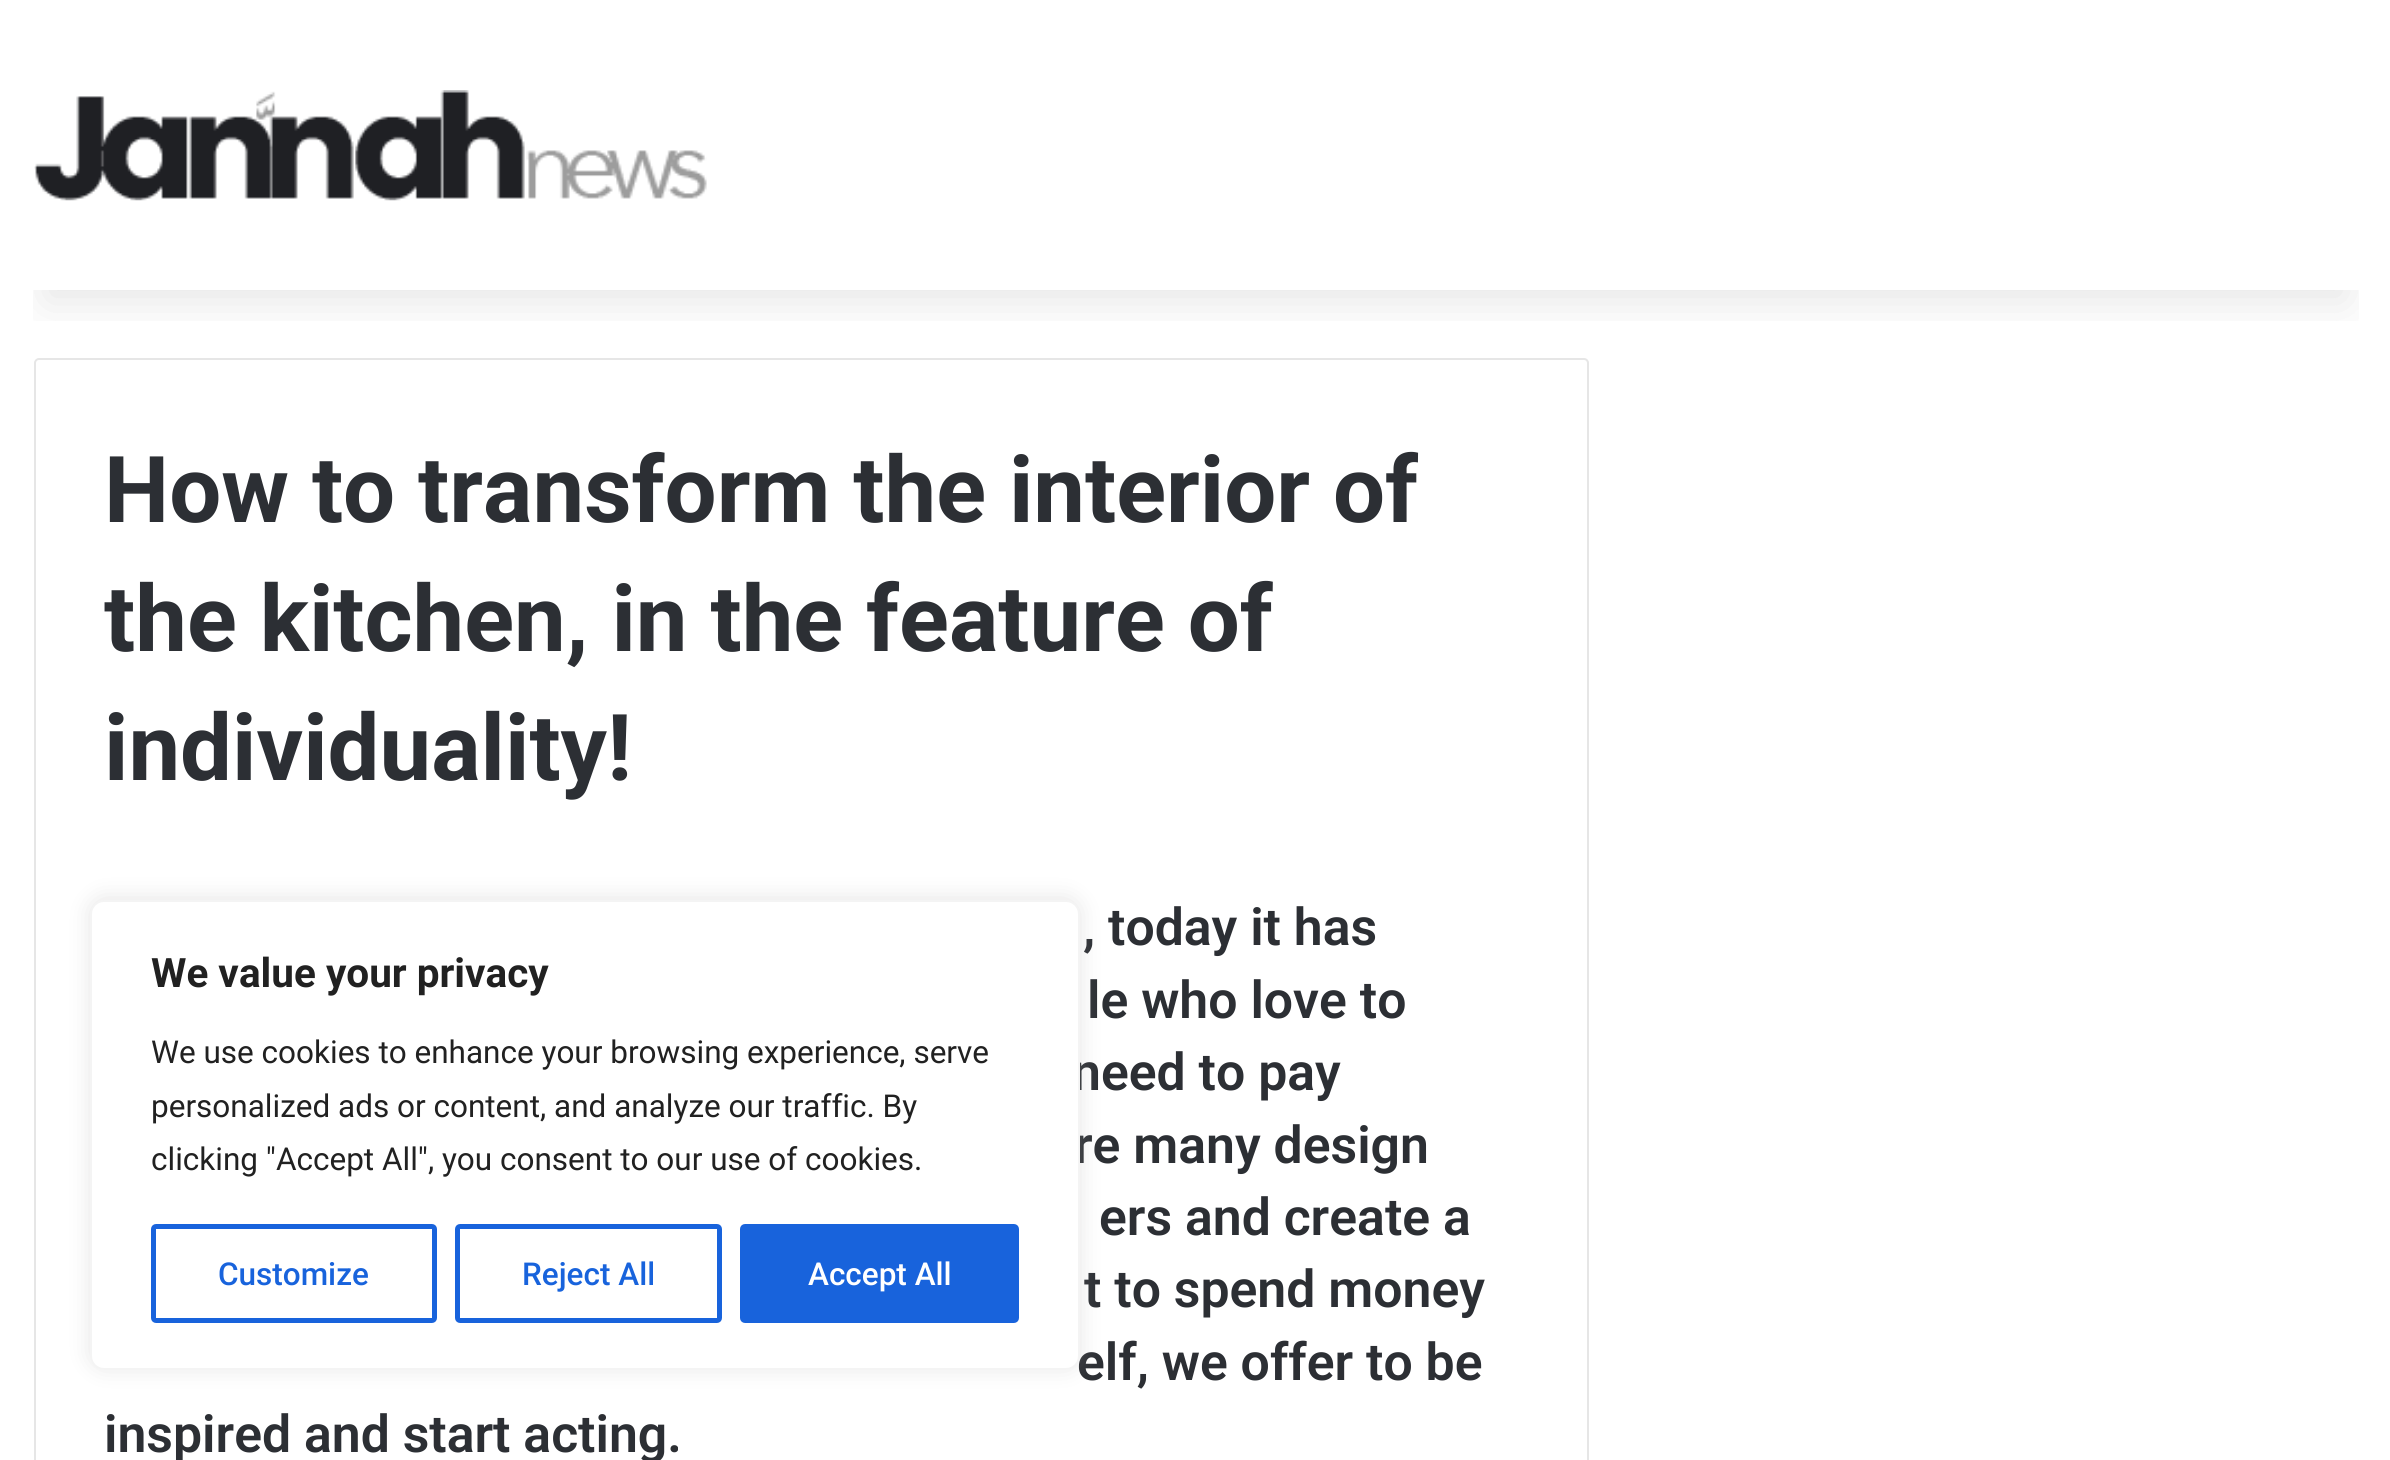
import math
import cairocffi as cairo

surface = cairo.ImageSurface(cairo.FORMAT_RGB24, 2390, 1460)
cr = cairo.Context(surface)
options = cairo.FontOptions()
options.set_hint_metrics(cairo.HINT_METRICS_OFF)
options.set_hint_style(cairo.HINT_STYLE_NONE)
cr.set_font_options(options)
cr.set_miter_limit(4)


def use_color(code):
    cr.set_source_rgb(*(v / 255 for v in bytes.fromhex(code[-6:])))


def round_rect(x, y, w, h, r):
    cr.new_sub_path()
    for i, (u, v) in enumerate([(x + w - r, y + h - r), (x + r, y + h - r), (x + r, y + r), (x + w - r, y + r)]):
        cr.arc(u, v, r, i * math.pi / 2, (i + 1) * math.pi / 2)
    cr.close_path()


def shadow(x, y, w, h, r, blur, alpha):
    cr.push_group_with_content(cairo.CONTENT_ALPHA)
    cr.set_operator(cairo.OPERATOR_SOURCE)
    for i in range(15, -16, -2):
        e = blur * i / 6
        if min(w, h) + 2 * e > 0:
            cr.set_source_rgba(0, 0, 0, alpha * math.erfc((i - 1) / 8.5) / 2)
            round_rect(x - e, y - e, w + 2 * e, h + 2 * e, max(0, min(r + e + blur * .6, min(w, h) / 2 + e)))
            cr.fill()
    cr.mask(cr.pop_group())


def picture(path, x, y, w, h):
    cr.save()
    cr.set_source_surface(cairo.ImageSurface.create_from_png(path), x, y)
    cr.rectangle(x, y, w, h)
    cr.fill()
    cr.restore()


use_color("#ffffff")
cr.paint()
round_rect(35, 359, 1553, 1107, 4)
use_color("#e6e6e6")
cr.stroke()
cr.save()
cr.rectangle(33, 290, 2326, 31)
cr.clip()
use_color("#000000")
shadow(45, 101, 2302, 201, 0, 22.5, 0.1)
cr.restore()
picture("img1.png", 34, 90, 673, 111)
cr.select_font_face("Roboto", cairo.FONT_SLANT_NORMAL, cairo.FONT_WEIGHT_BOLD)
cr.set_font_size(92.25)
use_color("#2c2f34")
cr.move_to(104, 522)
cr.show_text("How to transform the interior of")
cr.move_to(104, 651)
cr.show_text("the kitchen, in the feature of")
cr.move_to(104, 780)
cr.show_text("individuality!")
cr.select_font_face("Roboto SemiBold")
cr.set_font_size(51.75)
cr.move_to(1083, 945)
cr.show_text(", today it has")
cr.move_to(1087, 1018)
cr.show_text("le who love to")
cr.move_to(1072, 1090)
cr.show_text("need to pay")
cr.move_to(1074, 1163)
cr.show_text("re many design")
cr.move_to(1099, 1235)
cr.show_text("ers and create a")
cr.move_to(1084, 1307)
cr.show_text("t to spend money")
cr.move_to(1077, 1380)
cr.show_text("elf, we offer to be")
cr.move_to(104, 1452)
cr.show_text("inspired and start acting.")
use_color("#acabab")
shadow(90, 898, 990, 470, 14, 11, 0.3)
use_color("#ffffff")
round_rect(91, 901, 988, 468, 13)
cr.fill_preserve()
use_color("#f4f4f4")
cr.stroke()
cr.select_font_face("Roboto", cairo.FONT_SLANT_NORMAL, cairo.FONT_WEIGHT_BOLD)
cr.set_font_size(40.5)
use_color("#212121")
cr.move_to(151, 987)
cr.show_text("We value your privacy")
cr.select_font_face("Roboto")
cr.set_font_size(31.5)
cr.move_to(151, 1063)
cr.show_text("We use cookies to enhance your browsing experience, serve")
cr.move_to(151, 1117)
cr.show_text("personalized ads or content, and analyze our traffic. By")
cr.move_to(151, 1170)
cr.show_text("clicking \"Accept All\", you consent to our use of cookies.")
round_rect(153.5, 1226.5, 281, 94, 2.5)
use_color("#1863dc")
cr.set_line_width(5)
cr.stroke()
cr.select_font_face("Roboto Medium")
cr.move_to(218, 1285)
cr.show_text("Customize")
round_rect(457.5, 1226.5, 262, 94, 2.5)
cr.stroke()
cr.move_to(522, 1285)
cr.show_text("Reject All")
round_rect(742.5, 1226.5, 274, 94, 2.5)
cr.fill_preserve()
cr.stroke()
use_color("#ffffff")
cr.move_to(808, 1285)
cr.show_text("Accept All")
surface.write_to_png("result.png")
